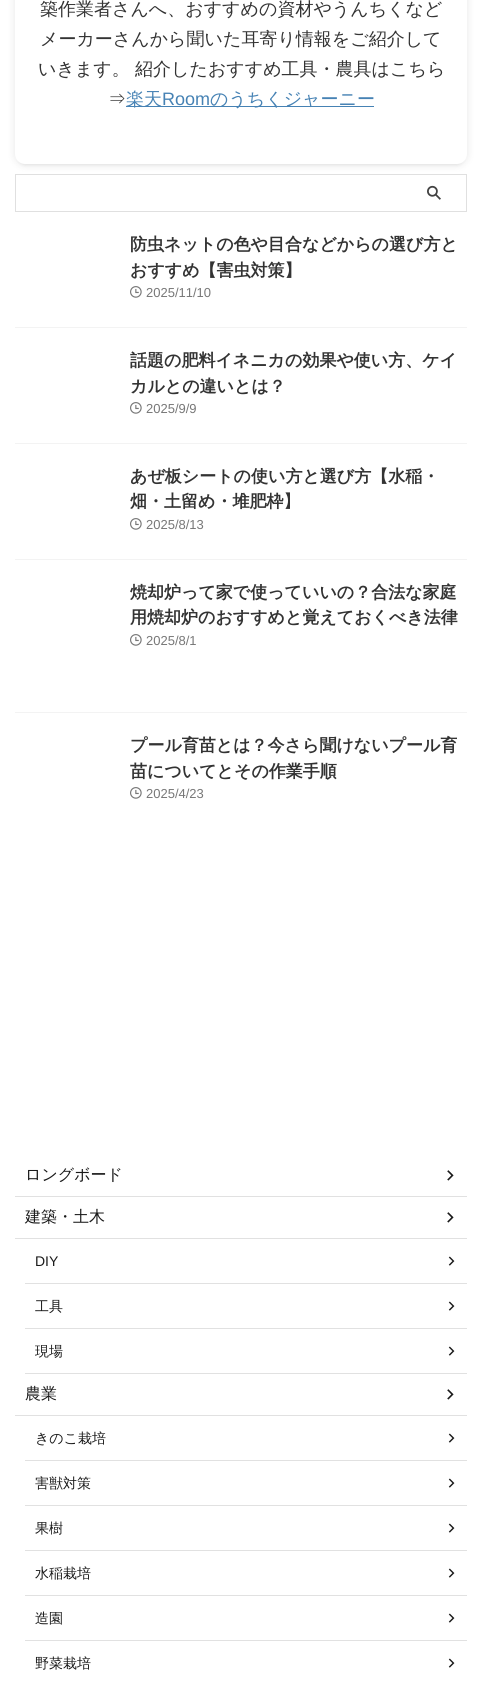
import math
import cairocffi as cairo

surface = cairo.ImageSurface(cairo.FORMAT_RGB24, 482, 1681)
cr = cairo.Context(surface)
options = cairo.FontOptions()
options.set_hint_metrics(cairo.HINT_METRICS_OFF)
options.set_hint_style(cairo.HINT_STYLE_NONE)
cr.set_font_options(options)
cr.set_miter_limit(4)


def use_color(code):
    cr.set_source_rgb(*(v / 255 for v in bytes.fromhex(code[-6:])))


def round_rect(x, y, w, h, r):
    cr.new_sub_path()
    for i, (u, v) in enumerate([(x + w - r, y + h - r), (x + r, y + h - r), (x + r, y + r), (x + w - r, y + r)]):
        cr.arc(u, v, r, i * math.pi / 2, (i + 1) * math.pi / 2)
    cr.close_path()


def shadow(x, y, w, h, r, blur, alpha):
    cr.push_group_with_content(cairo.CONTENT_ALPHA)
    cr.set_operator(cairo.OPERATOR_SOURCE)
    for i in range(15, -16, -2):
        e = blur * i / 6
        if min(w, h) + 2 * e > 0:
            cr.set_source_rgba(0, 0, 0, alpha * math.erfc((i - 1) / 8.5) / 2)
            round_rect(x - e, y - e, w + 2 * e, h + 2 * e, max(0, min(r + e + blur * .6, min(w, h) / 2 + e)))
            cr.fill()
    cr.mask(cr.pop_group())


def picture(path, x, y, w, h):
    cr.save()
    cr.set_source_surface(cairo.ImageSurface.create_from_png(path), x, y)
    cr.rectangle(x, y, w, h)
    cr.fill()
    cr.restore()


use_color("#ffffff")
cr.paint()
use_color("#000000")
shadow(19, -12, 444, 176, 6, 2, 0.1)
shadow(15, -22, 452, 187, 10, 4, 0.1)
use_color("#ffffff")
round_rect(15, -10, 452, 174, 10)
cr.fill()
cr.select_font_face("WenQuanYi Zen Hei Medium")
cr.set_font_size(18)
use_color("#333333")
cr.move_to(40, 15)
cr.show_text("築作業者さんへ、おすすめの資材やうんちくなど")
cr.move_to(40, 45)
cr.show_text("メーカーさんから聞いた耳寄り情報をご紹介して")
cr.move_to(38, 75)
cr.show_text("いきます。 紹介したおすすめ工具・農具はこちら")
cr.move_to(108, 105)
cr.show_text("⇒")
use_color("#4682b4")
cr.rectangle(126, 106, 248, 1)
cr.fill()
cr.move_to(126, 105)
cr.show_text("楽天")
cr.select_font_face("Liberation Sans")
cr.move_to(162, 105)
cr.show_text("Room")
cr.select_font_face("WenQuanYi Zen Hei Medium")
cr.move_to(210, 105)
cr.show_text("のうちくジャーニー")
cr.rectangle(15.5, 174.5, 451, 37)
use_color("#e0e0e0")
cr.set_line_width(1)
cr.stroke()
picture("img1.png", 427, 185, 14, 15)
use_color("#f3f3f3")
cr.rectangle(15, 327, 452, 1)
cr.fill()
cr.select_font_face("WenQuanYi Zen Hei", cairo.FONT_SLANT_NORMAL, cairo.FONT_WEIGHT_BOLD)
cr.set_font_size(17)
use_color("#333333")
cr.move_to(130, 250)
cr.show_text("防虫ネットの色や目合などからの選び方と")
cr.move_to(130, 276)
cr.show_text("おすすめ【害虫対策】")
picture("img2.png", 130, 286, 12, 12)
cr.select_font_face("Liberation Sans")
cr.set_font_size(13)
use_color("#777777")
cr.move_to(146, 297)
cr.show_text("2025/11/10")
use_color("#f3f3f3")
cr.rectangle(15, 443, 452, 1)
cr.fill()
cr.select_font_face("WenQuanYi Zen Hei", cairo.FONT_SLANT_NORMAL, cairo.FONT_WEIGHT_BOLD)
cr.set_font_size(17)
use_color("#333333")
cr.move_to(130, 366)
cr.show_text("話題の肥料イネニカの効果や使い方、ケイ")
cr.move_to(130, 392)
cr.show_text("カルとの違いとは？")
picture("img2.png", 130, 402, 12, 12)
cr.select_font_face("Liberation Sans")
cr.set_font_size(13)
use_color("#777777")
cr.move_to(146, 413)
cr.show_text("2025/9/9")
use_color("#f3f3f3")
cr.rectangle(15, 559, 452, 1)
cr.fill()
cr.select_font_face("WenQuanYi Zen Hei", cairo.FONT_SLANT_NORMAL, cairo.FONT_WEIGHT_BOLD)
cr.set_font_size(17)
use_color("#333333")
cr.move_to(130, 482)
cr.show_text("あぜ板シートの使い方と選び方【水稲・")
cr.move_to(130, 507)
cr.show_text("畑・土留め・堆肥枠】")
picture("img2.png", 130, 518, 12, 12)
cr.select_font_face("Liberation Sans")
cr.set_font_size(13)
use_color("#777777")
cr.move_to(146, 529)
cr.show_text("2025/8/13")
use_color("#f3f3f3")
cr.rectangle(15, 712, 452, 1)
cr.fill()
cr.select_font_face("WenQuanYi Zen Hei", cairo.FONT_SLANT_NORMAL, cairo.FONT_WEIGHT_BOLD)
cr.set_font_size(17)
use_color("#333333")
cr.move_to(130, 598)
cr.show_text("焼却炉って家で使っていいの？合法な家庭")
cr.move_to(130, 623)
cr.show_text("用焼却炉のおすすめと覚えておくべき法律")
picture("img2.png", 130, 634, 12, 12)
cr.select_font_face("Liberation Sans")
cr.set_font_size(13)
use_color("#777777")
cr.move_to(146, 645)
cr.show_text("2025/8/1")
cr.select_font_face("WenQuanYi Zen Hei", cairo.FONT_SLANT_NORMAL, cairo.FONT_WEIGHT_BOLD)
cr.set_font_size(17)
use_color("#333333")
cr.move_to(130, 751)
cr.show_text("プール育苗とは？今さら聞けないプール育")
cr.move_to(130, 777)
cr.show_text("苗についてとその作業手順")
picture("img2.png", 130, 787, 12, 12)
cr.select_font_face("Liberation Sans")
cr.set_font_size(13)
use_color("#777777")
cr.move_to(146, 798)
cr.show_text("2025/4/23")
use_color("#e1e1e1")
cr.rectangle(15, 1196, 452, 1)
cr.fill()
cr.select_font_face("WenQuanYi Zen Hei Medium")
cr.set_font_size(16)
use_color("#1a1a1a")
cr.move_to(25, 1180)
cr.show_text("ロングボード")
picture("img3.png", 447, 1170, 7, 11)
use_color("#e1e1e1")
cr.rectangle(15, 1238, 452, 1)
cr.fill()
use_color("#1a1a1a")
cr.move_to(25, 1222)
cr.show_text("建築・土木")
picture("img3.png", 447, 1212, 7, 11)
use_color("#e1e1e1")
cr.rectangle(25, 1283, 442, 1)
cr.fill()
cr.select_font_face("Liberation Sans")
cr.set_font_size(14)
use_color("#1a1a1a")
cr.move_to(35, 1266)
cr.show_text("DIY")
picture("img4.png", 448, 1256, 7, 10)
use_color("#e1e1e1")
cr.rectangle(25, 1328, 442, 1)
cr.fill()
cr.select_font_face("WenQuanYi Zen Hei Medium")
use_color("#1a1a1a")
cr.move_to(35, 1311)
cr.show_text("工具")
picture("img4.png", 448, 1301, 7, 10)
use_color("#e1e1e1")
cr.rectangle(25, 1373, 442, 1)
cr.fill()
use_color("#1a1a1a")
cr.move_to(35, 1356)
cr.show_text("現場")
picture("img4.png", 448, 1346, 7, 10)
use_color("#e1e1e1")
cr.rectangle(15, 1415, 452, 1)
cr.fill()
cr.set_font_size(16)
use_color("#1a1a1a")
cr.move_to(25, 1399)
cr.show_text("農業")
picture("img3.png", 447, 1389, 7, 11)
use_color("#e1e1e1")
cr.rectangle(25, 1460, 442, 1)
cr.fill()
cr.set_font_size(14)
use_color("#1a1a1a")
cr.move_to(35, 1443)
cr.show_text("きのこ栽培")
picture("img4.png", 448, 1433, 7, 10)
use_color("#e1e1e1")
cr.rectangle(25, 1505, 442, 1)
cr.fill()
use_color("#1a1a1a")
cr.move_to(35, 1488)
cr.show_text("害獣対策")
picture("img4.png", 448, 1478, 7, 10)
use_color("#e1e1e1")
cr.rectangle(25, 1550, 442, 1)
cr.fill()
use_color("#1a1a1a")
cr.move_to(35, 1533)
cr.show_text("果樹")
picture("img4.png", 448, 1523, 7, 10)
use_color("#e1e1e1")
cr.rectangle(25, 1595, 442, 1)
cr.fill()
use_color("#1a1a1a")
cr.move_to(35, 1578)
cr.show_text("水稲栽培")
picture("img4.png", 448, 1568, 7, 10)
use_color("#e1e1e1")
cr.rectangle(25, 1640, 442, 1)
cr.fill()
use_color("#1a1a1a")
cr.move_to(35, 1623)
cr.show_text("造園")
picture("img4.png", 448, 1613, 7, 10)
cr.move_to(35, 1668)
cr.show_text("野菜栽培")
picture("img4.png", 448, 1658, 7, 10)
surface.write_to_png("result.png")
